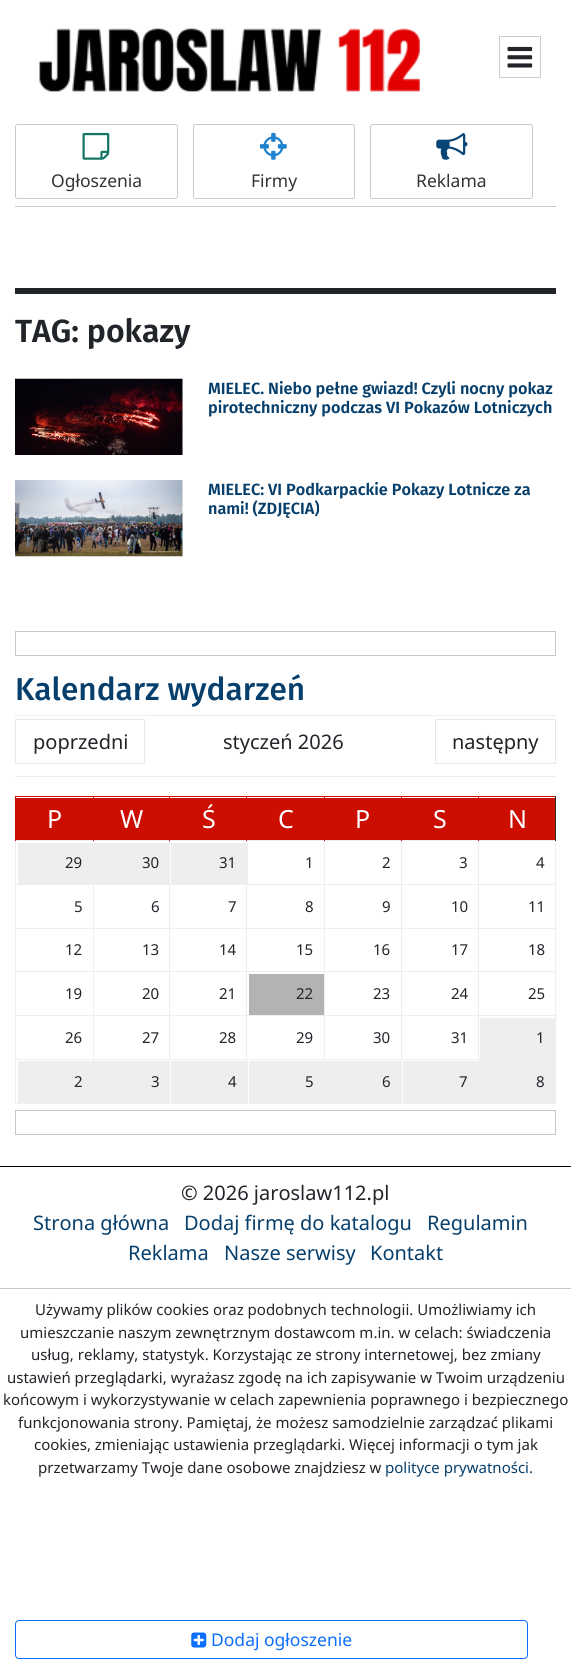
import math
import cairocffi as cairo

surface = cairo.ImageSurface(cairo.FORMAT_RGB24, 571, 1671)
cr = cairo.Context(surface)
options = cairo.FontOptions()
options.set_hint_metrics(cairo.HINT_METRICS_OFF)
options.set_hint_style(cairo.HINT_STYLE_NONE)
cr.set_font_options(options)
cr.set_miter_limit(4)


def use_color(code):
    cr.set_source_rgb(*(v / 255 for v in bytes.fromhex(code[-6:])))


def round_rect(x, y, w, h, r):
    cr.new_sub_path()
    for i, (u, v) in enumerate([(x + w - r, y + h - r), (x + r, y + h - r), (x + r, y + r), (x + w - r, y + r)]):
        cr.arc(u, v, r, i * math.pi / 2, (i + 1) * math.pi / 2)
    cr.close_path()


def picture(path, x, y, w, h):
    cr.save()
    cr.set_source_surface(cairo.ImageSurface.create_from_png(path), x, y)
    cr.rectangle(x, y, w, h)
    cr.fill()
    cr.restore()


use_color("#ffffff")
cr.paint()
picture("img1.png", 39, 28, 381, 64)
cr.rectangle(499.5, 36.5, 41, 41)
use_color("#cccccc")
cr.set_line_width(1)
cr.stroke()
picture("img2.png", 507, 46, 26, 22)
round_rect(15.5, 124.5, 162, 74, 2)
use_color("#cbcbcb")
cr.stroke()
picture("img3.png", 82, 132, 28, 28)
cr.select_font_face("Noto Sans")
cr.set_font_size(17.5)
use_color("#333333")
cr.move_to(51, 187)
cr.show_text("Ogłoszenia")
round_rect(193.5, 124.5, 161, 74, 2)
use_color("#cbcbcb")
cr.stroke()
picture("img4.png", 260, 132, 27, 28)
use_color("#333333")
cr.move_to(251, 187)
cr.show_text("Firmy")
round_rect(370.5, 124.5, 162, 74, 2)
use_color("#cbcbcb")
cr.stroke()
picture("img5.png", 436, 133, 32, 27)
use_color("#333333")
cr.move_to(416, 187)
cr.show_text("Reklama")
use_color("#c8c9ca")
cr.rectangle(15, 206, 541, 1)
cr.fill()
use_color("#212529")
cr.rectangle(15, 288, 541, 6)
cr.fill()
cr.select_font_face("Fira Sans SemiBold")
cr.set_font_size(32)
cr.move_to(15, 342)
cr.show_text("TAG: pokazy")
picture("img6.png", 15, 378, 168, 77)
cr.set_font_size(16.25)
use_color("#063f6c")
cr.move_to(208, 394)
cr.show_text("MIELEC. Niebo pełne gwiazd! Czyli nocny pokaz")
cr.move_to(208, 413)
cr.show_text("pirotechniczny podczas VI Pokazów Lotniczych")
picture("img7.png", 15, 480, 168, 77)
cr.move_to(208, 495)
cr.show_text("MIELEC: VI Podkarpackie Pokazy Lotnicze za")
cr.move_to(208, 514)
cr.show_text("nami! (ZDJĘCIA)")
cr.rectangle(15.5, 631.5, 540, 24)
use_color("#c7c7c7")
cr.stroke()
use_color("#eeeeee")
cr.rectangle(15, 715, 541, 1)
cr.fill()
cr.select_font_face("Fira Sans Medium")
cr.set_font_size(31.6)
use_color("#063f6c")
cr.move_to(15, 700)
cr.show_text("Kalendarz wydarzeń")
use_color("#eeeeee")
cr.rectangle(15, 776, 541, 1)
cr.fill()
cr.rectangle(15.5, 719.5, 129, 44)
use_color("#eae7e7")
cr.stroke()
cr.select_font_face("Noto Sans")
cr.set_font_size(20)
use_color("#212529")
cr.move_to(33, 749)
cr.show_text("poprzedni")
cr.move_to(223, 749)
cr.show_text("styczeń 2026")
cr.rectangle(435.5, 719.5, 120, 44)
use_color("#eae7e7")
cr.stroke()
use_color("#212529")
cr.move_to(452, 749)
cr.show_text("następny")
use_color("#cb0e00")
cr.rectangle(16, 798, 539, 42)
cr.fill()
cr.rectangle(478, 796, 78, 1)
cr.fill()
use_color("#eeeeee")
cr.rectangle(478, 840, 78, 1)
cr.fill()
cr.rectangle(478, 884, 78, 1)
cr.fill()
cr.rectangle(478, 928, 78, 1)
cr.fill()
cr.rectangle(478, 971, 78, 1)
cr.fill()
cr.rectangle(478, 1015, 78, 1)
cr.fill()
cr.rectangle(478, 1059, 78, 1)
cr.fill()
cr.rectangle(478, 1103, 78, 1)
cr.fill()
cr.rectangle(478, 1059, 1, 45)
cr.fill()
cr.rectangle(401, 1059, 78, 1)
cr.fill()
cr.rectangle(478, 1015, 1, 45)
cr.fill()
cr.rectangle(401, 1015, 78, 1)
cr.fill()
cr.rectangle(478, 971, 1, 45)
cr.fill()
cr.rectangle(401, 971, 78, 1)
cr.fill()
cr.rectangle(478, 928, 1, 45)
cr.fill()
cr.rectangle(401, 928, 78, 1)
cr.fill()
cr.rectangle(478, 884, 1, 45)
cr.fill()
cr.rectangle(401, 884, 78, 1)
cr.fill()
cr.rectangle(478, 840, 1, 45)
cr.fill()
cr.rectangle(401, 840, 78, 1)
cr.fill()
use_color("#cb0e00")
cr.rectangle(478, 796, 1, 45)
cr.fill()
cr.rectangle(401, 796, 78, 1)
cr.fill()
use_color("#eeeeee")
cr.rectangle(401, 1103, 78, 1)
cr.fill()
cr.rectangle(401, 1059, 1, 45)
cr.fill()
cr.rectangle(324, 1059, 79, 1)
cr.fill()
cr.rectangle(401, 1015, 1, 45)
cr.fill()
cr.rectangle(324, 1015, 79, 1)
cr.fill()
cr.rectangle(401, 971, 1, 45)
cr.fill()
cr.rectangle(324, 971, 79, 1)
cr.fill()
cr.rectangle(401, 928, 1, 45)
cr.fill()
cr.rectangle(324, 928, 79, 1)
cr.fill()
cr.rectangle(401, 884, 1, 45)
cr.fill()
cr.rectangle(324, 884, 79, 1)
cr.fill()
cr.rectangle(401, 840, 1, 45)
cr.fill()
cr.rectangle(324, 840, 79, 1)
cr.fill()
use_color("#cb0e00")
cr.rectangle(401, 796, 1, 45)
cr.fill()
cr.rectangle(324, 796, 79, 1)
cr.fill()
use_color("#eeeeee")
cr.rectangle(324, 1103, 79, 1)
cr.fill()
cr.rectangle(324, 1059, 1, 45)
cr.fill()
cr.rectangle(246, 1059, 79, 1)
cr.fill()
cr.rectangle(324, 1015, 1, 45)
cr.fill()
cr.rectangle(246, 1015, 79, 1)
cr.fill()
cr.rectangle(324, 971, 1, 45)
cr.fill()
cr.rectangle(246, 971, 79, 1)
cr.fill()
cr.rectangle(324, 928, 1, 45)
cr.fill()
cr.rectangle(246, 928, 79, 1)
cr.fill()
cr.rectangle(324, 884, 1, 45)
cr.fill()
cr.rectangle(246, 884, 79, 1)
cr.fill()
cr.rectangle(324, 840, 1, 45)
cr.fill()
cr.rectangle(246, 840, 79, 1)
cr.fill()
use_color("#cb0e00")
cr.rectangle(324, 796, 1, 45)
cr.fill()
cr.rectangle(246, 796, 79, 1)
cr.fill()
use_color("#eeeeee")
cr.rectangle(246, 840, 1, 3)
cr.fill()
cr.rectangle(169, 840, 79, 1)
cr.fill()
use_color("#cb0e00")
cr.rectangle(246, 796, 1, 45)
cr.fill()
cr.rectangle(169, 796, 79, 1)
cr.fill()
use_color("#eeeeee")
cr.rectangle(246, 1059, 1, 2)
cr.fill()
cr.rectangle(169, 1059, 79, 1)
cr.fill()
cr.rectangle(246, 1015, 1, 45)
cr.fill()
cr.rectangle(169, 1015, 79, 1)
cr.fill()
cr.rectangle(246, 971, 1, 45)
cr.fill()
cr.rectangle(169, 971, 79, 1)
cr.fill()
cr.rectangle(246, 928, 1, 45)
cr.fill()
cr.rectangle(169, 928, 79, 1)
cr.fill()
cr.rectangle(246, 884, 1, 45)
cr.fill()
cr.rectangle(169, 884, 79, 1)
cr.fill()
cr.rectangle(169, 1103, 156, 1)
cr.fill()
cr.rectangle(169, 1059, 1, 45)
cr.fill()
cr.rectangle(93, 1059, 77, 1)
cr.fill()
cr.rectangle(169, 1015, 1, 45)
cr.fill()
cr.rectangle(93, 1015, 77, 1)
cr.fill()
cr.rectangle(169, 971, 1, 45)
cr.fill()
cr.rectangle(93, 971, 77, 1)
cr.fill()
cr.rectangle(169, 928, 1, 45)
cr.fill()
cr.rectangle(93, 928, 77, 1)
cr.fill()
cr.rectangle(169, 884, 1, 45)
cr.fill()
cr.rectangle(93, 884, 77, 1)
cr.fill()
cr.rectangle(169, 840, 1, 45)
cr.fill()
cr.rectangle(93, 840, 77, 1)
cr.fill()
use_color("#cb0e00")
cr.rectangle(169, 796, 1, 45)
cr.fill()
cr.rectangle(93, 796, 77, 1)
cr.fill()
use_color("#eeeeee")
cr.rectangle(93, 1103, 77, 1)
cr.fill()
cr.rectangle(93, 1059, 1, 45)
cr.fill()
cr.rectangle(15, 1059, 79, 1)
cr.fill()
cr.rectangle(93, 1015, 1, 45)
cr.fill()
cr.rectangle(15, 1015, 79, 1)
cr.fill()
cr.rectangle(93, 971, 1, 45)
cr.fill()
cr.rectangle(15, 971, 79, 1)
cr.fill()
cr.rectangle(93, 928, 1, 45)
cr.fill()
cr.rectangle(15, 928, 79, 1)
cr.fill()
cr.rectangle(93, 884, 1, 45)
cr.fill()
cr.rectangle(15, 884, 79, 1)
cr.fill()
cr.rectangle(93, 840, 1, 45)
cr.fill()
cr.rectangle(15, 840, 79, 1)
cr.fill()
use_color("#cb0e00")
cr.rectangle(93, 796, 1, 45)
cr.fill()
cr.rectangle(15, 796, 79, 1)
cr.fill()
use_color("#eeeeee")
cr.rectangle(15, 1103, 79, 1)
cr.fill()
cr.rectangle(15, 1059, 1, 45)
cr.fill()
cr.rectangle(15, 1015, 1, 45)
cr.fill()
cr.rectangle(15, 971, 1, 45)
cr.fill()
cr.rectangle(15, 928, 1, 45)
cr.fill()
cr.rectangle(15, 884, 1, 45)
cr.fill()
cr.rectangle(15, 840, 1, 45)
cr.fill()
use_color("#cb0e00")
cr.rectangle(15, 796, 1, 45)
cr.fill()
cr.set_font_size(25)
use_color("#ffffff")
cr.move_to(47, 828)
cr.show_text("P")
cr.move_to(120, 828)
cr.show_text("W")
cr.move_to(202, 828)
cr.show_text("Ś")
cr.move_to(278, 828)
cr.show_text("C")
cr.move_to(355, 828)
cr.show_text("P")
cr.move_to(433, 828)
cr.show_text("S")
use_color("#eeeeee")
cr.rectangle(555, 1015, 1, 45)
cr.fill()
cr.rectangle(555, 971, 1, 45)
cr.fill()
cr.rectangle(555, 928, 1, 45)
cr.fill()
cr.rectangle(555, 884, 1, 45)
cr.fill()
cr.rectangle(555, 840, 1, 45)
cr.fill()
use_color("#332c22")
cr.rectangle(555, 796, 1, 45)
cr.fill()
use_color("#ffffff")
cr.move_to(508, 828)
cr.show_text("N")
use_color("#eeeeee")
cr.rectangle(18, 843, 75, 41)
cr.fill()
cr.set_font_size(15)
use_color("#212529")
cr.move_to(65, 868)
cr.show_text("29")
use_color("#eeeeee")
cr.rectangle(94, 843, 75, 41)
cr.fill()
use_color("#212529")
cr.move_to(142, 868)
cr.show_text("30")
use_color("#eeeeee")
cr.rectangle(171, 843, 77, 41)
cr.fill()
use_color("#212529")
cr.move_to(219, 868)
cr.show_text("31")
cr.move_to(305, 868)
cr.show_text("1")
cr.move_to(382, 868)
cr.show_text("2")
cr.move_to(459, 868)
cr.show_text("3")
cr.move_to(536, 868)
cr.show_text("4")
cr.move_to(74, 912)
cr.show_text("5")
cr.move_to(151, 912)
cr.show_text("6")
cr.move_to(228, 912)
cr.show_text("7")
cr.move_to(305, 912)
cr.show_text("8")
cr.move_to(382, 912)
cr.show_text("9")
cr.move_to(451, 912)
cr.show_text("10")
cr.move_to(528, 912)
cr.show_text("11")
cr.move_to(65, 955)
cr.show_text("12")
cr.move_to(142, 955)
cr.show_text("13")
cr.move_to(219, 955)
cr.show_text("14")
cr.move_to(296, 955)
cr.show_text("15")
cr.move_to(373, 955)
cr.show_text("16")
cr.move_to(451, 955)
cr.show_text("17")
cr.move_to(528, 955)
cr.show_text("18")
cr.move_to(65, 999)
cr.show_text("19")
cr.move_to(142, 999)
cr.show_text("20")
cr.move_to(219, 999)
cr.show_text("21")
use_color("#b3b3b3")
cr.rectangle(249, 974, 75, 41)
cr.fill()
use_color("#212529")
cr.move_to(296, 999)
cr.show_text("22")
cr.move_to(373, 999)
cr.show_text("23")
cr.move_to(451, 999)
cr.show_text("24")
cr.move_to(528, 999)
cr.show_text("25")
cr.move_to(65, 1043)
cr.show_text("26")
cr.move_to(142, 1043)
cr.show_text("27")
cr.move_to(219, 1043)
cr.show_text("28")
cr.move_to(296, 1043)
cr.show_text("29")
cr.move_to(373, 1043)
cr.show_text("30")
cr.move_to(451, 1043)
cr.show_text("31")
use_color("#eeeeee")
cr.rectangle(480, 1018, 75, 41)
cr.fill()
use_color("#212529")
cr.move_to(536, 1043)
cr.show_text("1")
use_color("#eeeeee")
cr.rectangle(18, 1061, 75, 42)
cr.fill()
use_color("#212529")
cr.move_to(74, 1087)
cr.show_text("2")
use_color("#eeeeee")
cr.rectangle(94, 1061, 75, 42)
cr.fill()
use_color("#212529")
cr.move_to(151, 1087)
cr.show_text("3")
use_color("#eeeeee")
cr.rectangle(171, 1061, 77, 42)
cr.fill()
use_color("#212529")
cr.move_to(228, 1087)
cr.show_text("4")
use_color("#eeeeee")
cr.rectangle(249, 1061, 75, 42)
cr.fill()
use_color("#212529")
cr.move_to(305, 1087)
cr.show_text("5")
use_color("#eeeeee")
cr.rectangle(325, 1061, 76, 42)
cr.fill()
use_color("#212529")
cr.move_to(382, 1087)
cr.show_text("6")
use_color("#eeeeee")
cr.rectangle(403, 1061, 75, 42)
cr.fill()
use_color("#212529")
cr.move_to(459, 1087)
cr.show_text("7")
use_color("#eeeeee")
cr.rectangle(479, 1060, 77, 43)
cr.fill()
use_color("#212529")
cr.move_to(536, 1087)
cr.show_text("8")
cr.rectangle(15.5, 1110.5, 540, 24)
use_color("#c7c7c7")
cr.stroke()
use_color("#000000")
cr.rectangle(0, 1166, 571, 1)
cr.fill()
cr.set_font_size(20)
use_color("#212529")
cr.move_to(181, 1200)
cr.show_text("© 2026 jaroslaw112.pl")
use_color("#063f6c")
cr.move_to(33, 1230)
cr.show_text("Strona główna")
cr.move_to(184, 1230)
cr.show_text("Dodaj firmę do katalogu")
cr.move_to(427, 1230)
cr.show_text("Regulamin")
cr.move_to(128, 1260)
cr.show_text("Reklama")
cr.move_to(224, 1260)
cr.show_text("Nasze serwisy")
cr.move_to(370, 1260)
cr.show_text("Kontakt")
use_color("#c8c9ca")
cr.rectangle(0, 1288, 571, 1)
cr.fill()
cr.set_font_size(15)
use_color("#212529")
cr.move_to(35, 1315)
cr.show_text("Używamy plików cookies oraz podobnych technologii. Umożliwiamy ich")
cr.move_to(20, 1338)
cr.show_text("umieszczanie naszym zewnętrznym dostawcom m.in. w celach: świadczenia")
cr.move_to(31, 1360)
cr.show_text("usług, reklamy, statystyk. Korzystając ze strony internetowej, bez zmiany")
cr.move_to(7, 1383)
cr.show_text("ustawień przeglądarki, wyrażasz zgodę na ich zapisywanie w Twoim urządzeniu")
cr.move_to(3, 1405)
cr.show_text("końcowym i wykorzystywanie w celach zapewnienia poprawnego i bezpiecznego")
cr.move_to(18, 1428)
cr.show_text("funkcjonowania strony. Pamiętaj, że możesz samodzielnie zarządzać plikami")
cr.move_to(34, 1450)
cr.show_text("cookies, zmieniając ustawienia przeglądarki. Więcej informacji o tym jak")
cr.move_to(38, 1473)
cr.show_text("przetwarzamy Twoje dane osobowe znajdziesz w")
use_color("#063f6c")
cr.move_to(385, 1473)
cr.show_text("polityce prywatności.")
round_rect(15.5, 1620.5, 512, 38, 3.5)
use_color("#0d6efd")
cr.stroke()
picture("img8.png", 191, 1632, 16, 16)
cr.set_font_size(17.5)
cr.move_to(211, 1646)
cr.show_text("Dodaj ogłoszenie")
surface.write_to_png("result.png")
